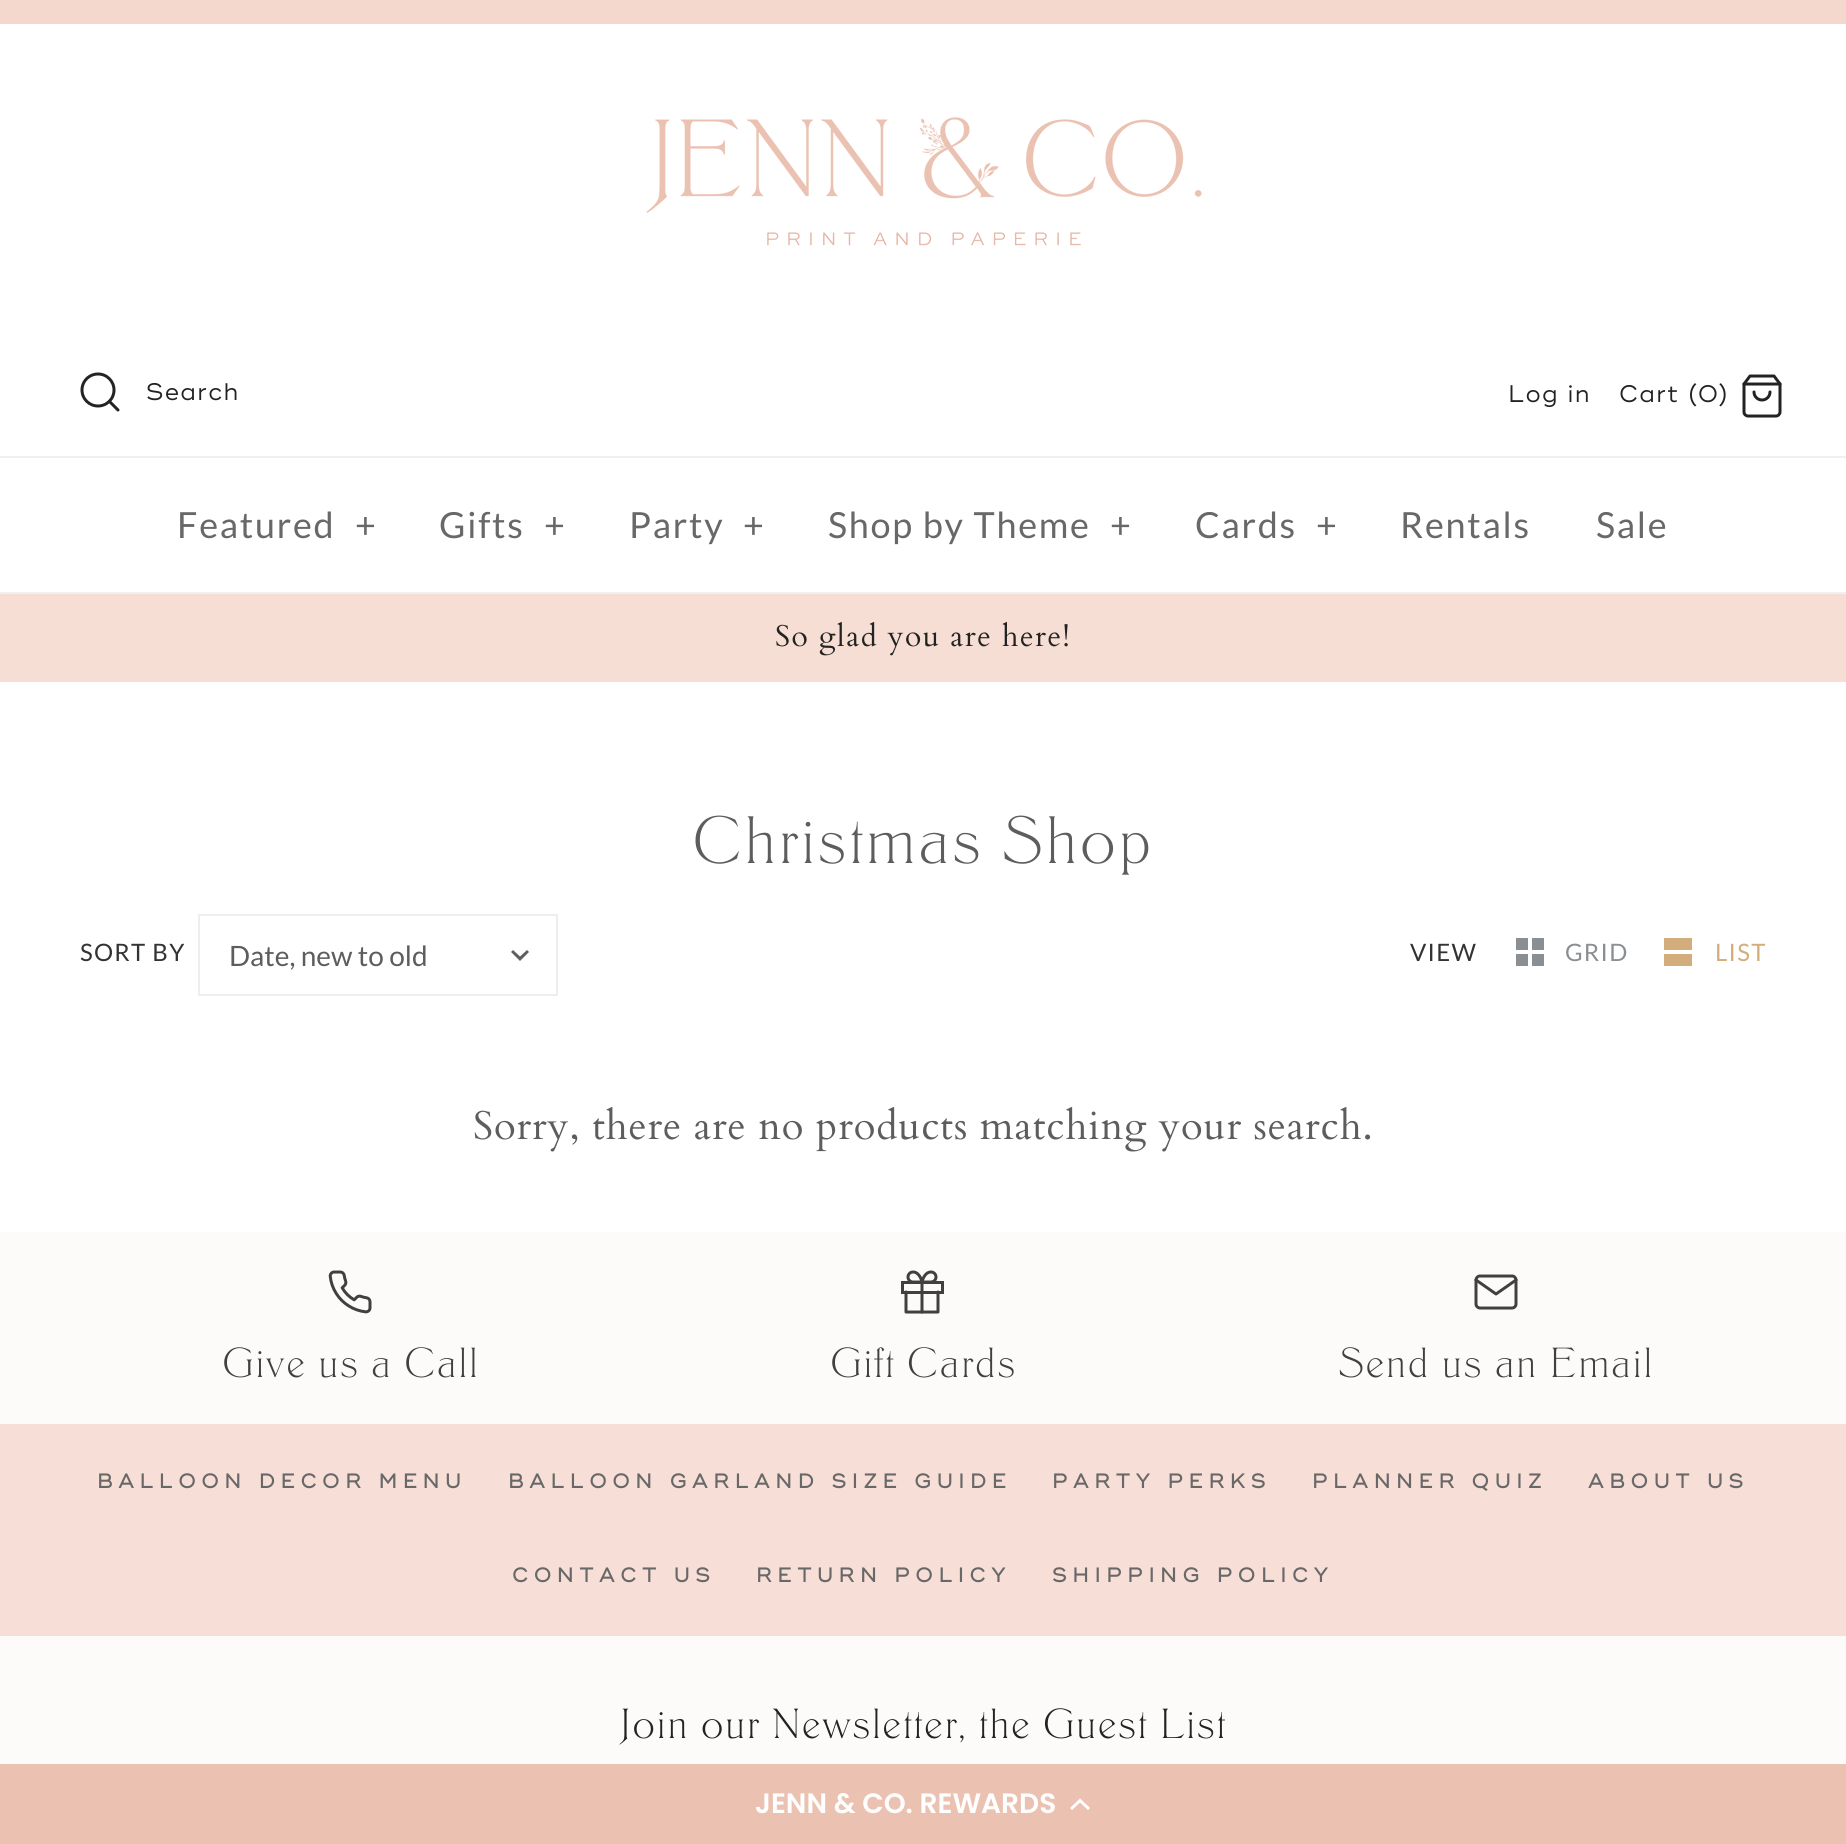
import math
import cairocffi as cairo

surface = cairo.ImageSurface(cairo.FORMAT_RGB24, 1846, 1844)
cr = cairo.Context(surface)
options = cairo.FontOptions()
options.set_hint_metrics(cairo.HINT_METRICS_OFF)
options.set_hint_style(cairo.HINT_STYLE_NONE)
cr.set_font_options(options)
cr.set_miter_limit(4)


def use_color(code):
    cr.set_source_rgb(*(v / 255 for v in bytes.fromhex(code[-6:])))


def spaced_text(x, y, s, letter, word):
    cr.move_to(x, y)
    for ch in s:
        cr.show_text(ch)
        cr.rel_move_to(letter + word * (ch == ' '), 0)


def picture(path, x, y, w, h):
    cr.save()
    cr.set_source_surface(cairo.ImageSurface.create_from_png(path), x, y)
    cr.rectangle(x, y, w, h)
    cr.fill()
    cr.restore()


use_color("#ffffff")
cr.paint()
use_color("#f4d8cd")
cr.rectangle(0, 0, 1846, 24)
cr.fill()
picture("img1.png", 646, 117, 556, 129)
cr.arc(98, 390, 16, 0, 2 * math.pi)
use_color("#232323")
cr.set_line_width(3)
cr.stroke()
cr.new_path()
cr.move_to(118, 410)
cr.line_to(109.5, 401.5)
cr.set_line_cap(cairo.LINE_CAP_ROUND)
cr.set_line_join(cairo.LINE_JOIN_ROUND)
cr.stroke()
cr.select_font_face("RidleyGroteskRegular")
cr.set_font_size(24)
spaced_text(146, 400, "Search", 1.25, 0)
spaced_text(1508, 402, "Log in", 1.25, 0)
spaced_text(1619, 402, "Cart (0)", 1.25, 0)
picture("img2.png", 1742, 374, 40, 44)
use_color("#f0f0f0")
cr.rectangle(0, 592, 1846, 2)
cr.fill()
cr.rectangle(0, 456, 1846, 2)
cr.fill()
cr.select_font_face("Lato")
cr.set_font_size(36)
use_color("#686868")
spaced_text(177, 538, "Featured", 1.75, 0)
spaced_text(355, 538, "+", 1.75, 0)
spaced_text(439, 538, "Gifts", 1.75, 0)
spaced_text(544, 538, "+", 1.75, 0)
spaced_text(629, 538, "Party", 1.75, 0)
spaced_text(743, 538, "+", 1.75, 0)
spaced_text(828, 538, "Shop by Theme", 1.75, 0)
spaced_text(1110, 538, "+", 1.75, 0)
spaced_text(1195, 538, "Cards", 1.75, 0)
spaced_text(1316, 538, "+", 1.75, 0)
spaced_text(1400, 538, "Rentals", 1.75, 0)
spaced_text(1596, 538, "Sale", 1.75, 0)
use_color("#f7ded5")
cr.rectangle(0, 594, 1846, 88)
cr.fill()
cr.select_font_face("Cardo")
cr.set_font_size(30)
use_color("#232323")
spaced_text(775, 646, "So glad you are here!", 1.5, 0)
cr.select_font_face("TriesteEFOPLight")
cr.set_font_size(70)
use_color("#5d5d5d")
spaced_text(692, 863, "Christmas Shop", 1.4, 0)
cr.select_font_face("Lato")
cr.set_font_size(24)
use_color("#343232")
spaced_text(80, 961, "SORT BY", 1.25, 0)
cr.rectangle(199, 915, 358, 80)
use_color("#eeeeee")
cr.set_line_width(2)
cr.set_line_cap(cairo.LINE_CAP_BUTT)
cr.set_line_join(cairo.LINE_JOIN_MITER)
cr.stroke()
cr.set_font_size(28)
use_color("#5d5d5d")
cr.move_to(229, 966)
cr.show_text("Date, new to old")
use_color("#5e5f60")
cr.new_path()
cr.move_to(513, 950)
cr.line_to(520, 956.5)
cr.line_to(527, 950)
cr.line_to(529, 952)
cr.line_to(520, 961)
cr.line_to(511, 952)
cr.close_path()
cr.fill()
cr.set_font_size(24)
use_color("#343232")
spaced_text(1410, 961, "VIEW", 1.25, 0)
use_color("#8a8f93")
cr.rectangle(1516, 938, 12, 12)
cr.fill()
cr.rectangle(1532, 938, 12, 12)
cr.fill()
spaced_text(1565, 961, "GRID", 1.25, 0)
cr.rectangle(1516, 954, 12, 12)
cr.fill()
cr.rectangle(1532, 954, 12, 12)
cr.fill()
use_color("#d3ae7c")
cr.rectangle(1664, 938, 28, 12)
cr.fill()
spaced_text(1715, 961, "LIST", 1.25, 0)
cr.rectangle(1664, 954, 28, 12)
cr.fill()
cr.select_font_face("Cardo")
cr.set_font_size(40)
use_color("#5d5d5d")
spaced_text(473, 1139, "Sorry, there are no products matching your search.", 0.9, 0)
use_color("#fcfbfa")
cr.rectangle(0, 1232, 1846, 532)
cr.fill()
picture("img3.png", 328, 1270, 44, 44)
cr.select_font_face("TriesteEFOPLight")
cr.set_font_size(44)
use_color("#42403f")
spaced_text(222, 1377, "Give us a Call", 0.9, 0)
picture("img4.png", 901, 1270, 43, 44)
spaced_text(830, 1377, "Gift Cards", 0.9, 0)
picture("img5.png", 1474, 1274, 44, 36)
spaced_text(1338, 1377, "Send us an Email", 0.9, 0)
use_color("#f7ded6")
cr.rectangle(0, 1424, 1846, 212)
cr.fill()
cr.select_font_face("RidleyGroteskRegular", cairo.FONT_SLANT_NORMAL, cairo.FONT_WEIGHT_BOLD)
cr.set_font_size(20)
use_color("#686868")
spaced_text(97, 1488, "BALLOON DECOR MENU", 5.8, 0)
spaced_text(508, 1488, "BALLOON GARLAND SIZE GUIDE", 5.8, 0)
spaced_text(1052, 1488, "PARTY PERKS", 5.8, 0)
spaced_text(1312, 1488, "PLANNER QUIZ", 5.8, 0)
spaced_text(1588, 1488, "ABOUT US", 5.8, 0)
spaced_text(512, 1582, "CONTACT US", 5.8, 0)
spaced_text(756, 1582, "RETURN POLICY", 5.8, 0)
spaced_text(1052, 1582, "SHIPPING POLICY", 5.8, 0)
cr.select_font_face("TriesteEFOPLight")
cr.set_font_size(44)
use_color("#232323")
spaced_text(620, 1738, "Join our Newsletter, the Guest List", 0.9, 0)
use_color("#ebc2b1")
cr.rectangle(0, 1764, 1846, 80)
cr.fill()
cr.select_font_face("Poppins SemiBold")
cr.set_font_size(28)
use_color("#ffffff")
cr.move_to(755, 1813)
cr.show_text("JENN & CO. REWARDS")
cr.new_path()
cr.move_to(1080, 1802.5)
cr.line_to(1072, 1810)
cr.line_to(1070, 1808)
cr.line_to(1080, 1798.5)
cr.line_to(1090, 1808)
cr.line_to(1088, 1810)
cr.close_path()
cr.fill()
surface.write_to_png("result.png")
